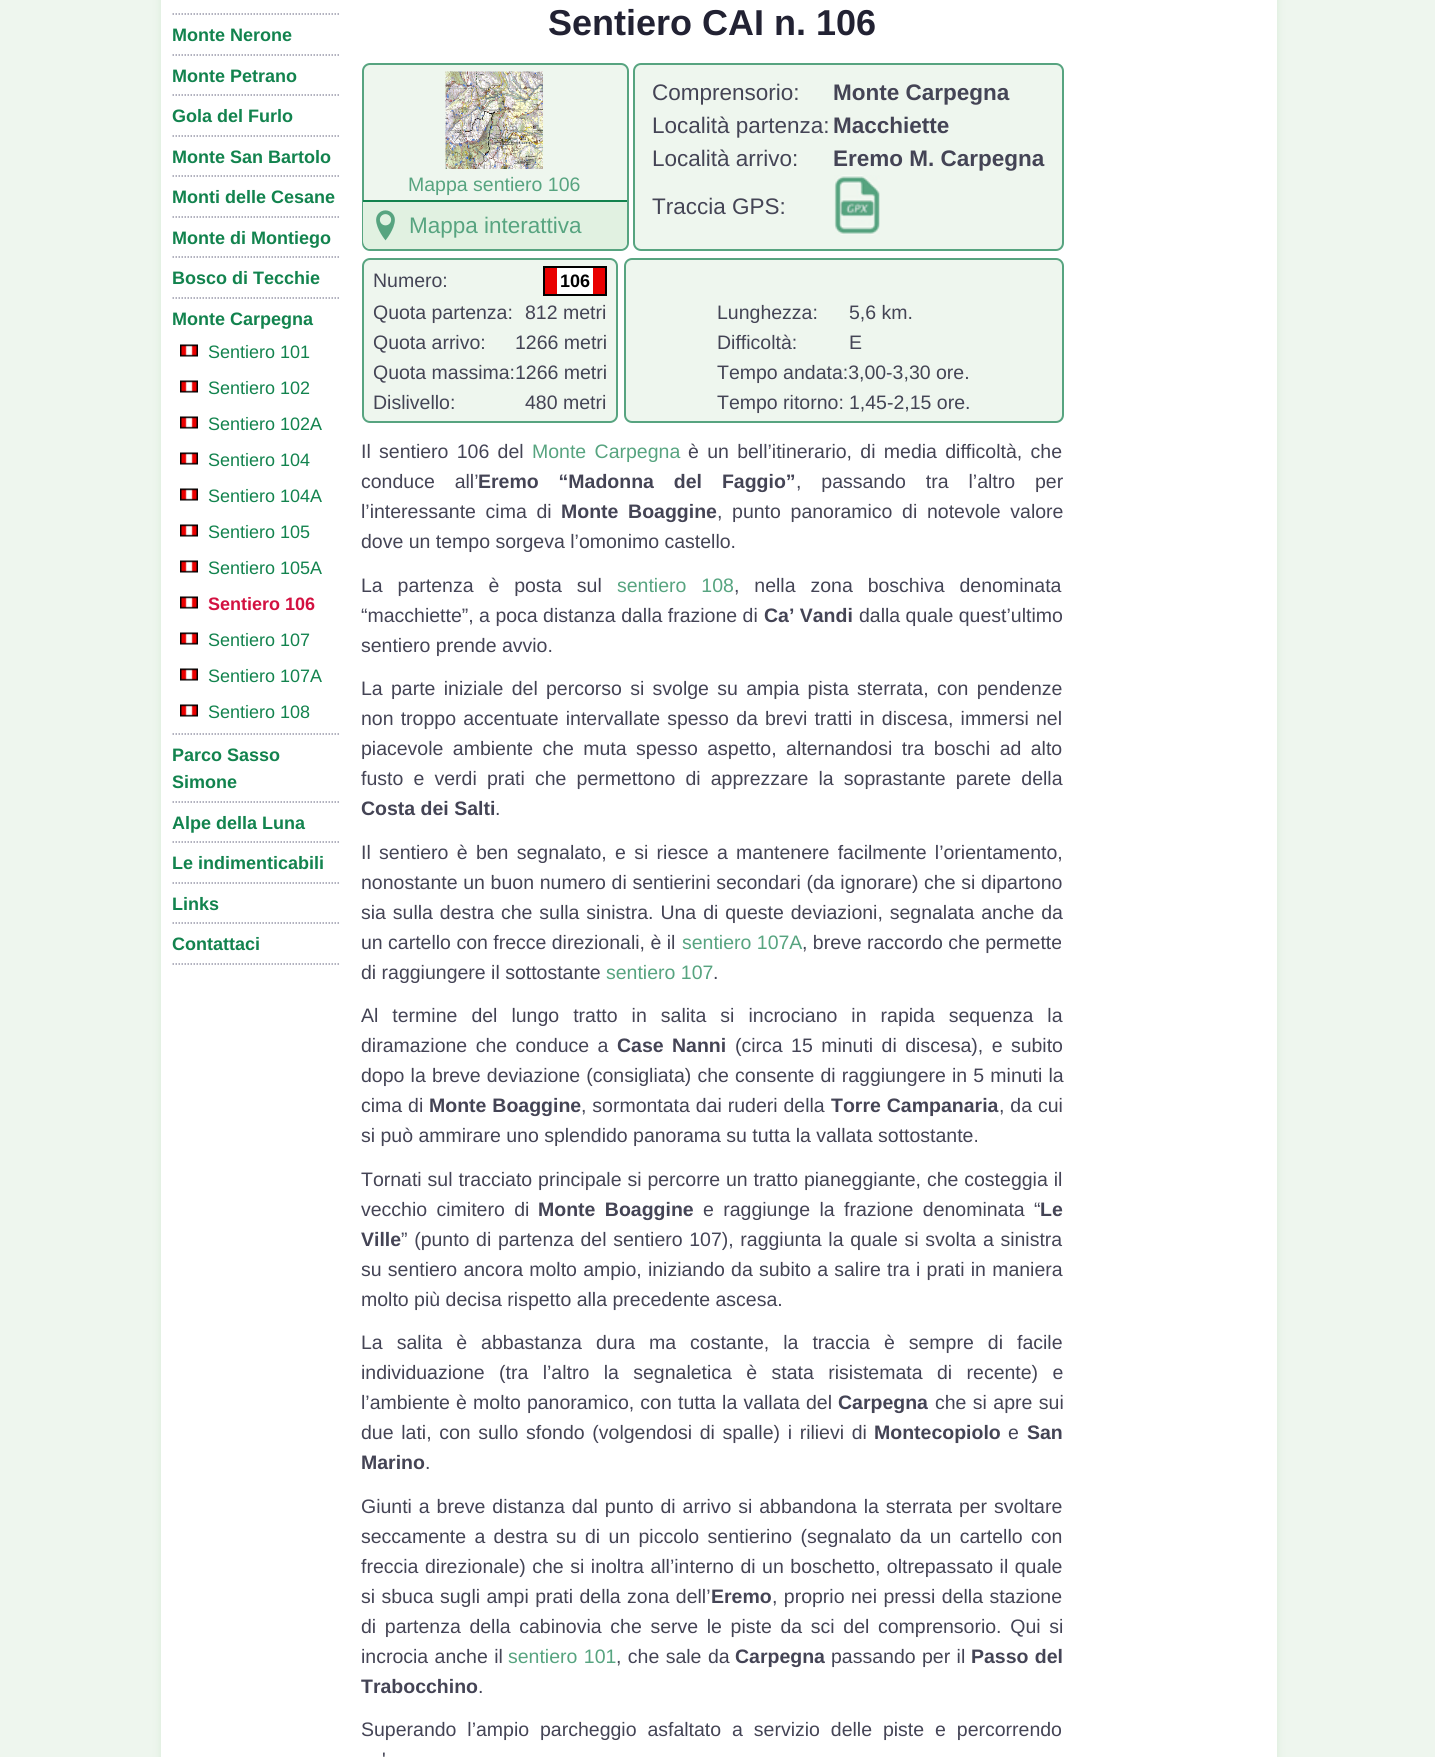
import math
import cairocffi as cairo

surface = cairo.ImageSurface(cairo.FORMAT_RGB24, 1435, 1757)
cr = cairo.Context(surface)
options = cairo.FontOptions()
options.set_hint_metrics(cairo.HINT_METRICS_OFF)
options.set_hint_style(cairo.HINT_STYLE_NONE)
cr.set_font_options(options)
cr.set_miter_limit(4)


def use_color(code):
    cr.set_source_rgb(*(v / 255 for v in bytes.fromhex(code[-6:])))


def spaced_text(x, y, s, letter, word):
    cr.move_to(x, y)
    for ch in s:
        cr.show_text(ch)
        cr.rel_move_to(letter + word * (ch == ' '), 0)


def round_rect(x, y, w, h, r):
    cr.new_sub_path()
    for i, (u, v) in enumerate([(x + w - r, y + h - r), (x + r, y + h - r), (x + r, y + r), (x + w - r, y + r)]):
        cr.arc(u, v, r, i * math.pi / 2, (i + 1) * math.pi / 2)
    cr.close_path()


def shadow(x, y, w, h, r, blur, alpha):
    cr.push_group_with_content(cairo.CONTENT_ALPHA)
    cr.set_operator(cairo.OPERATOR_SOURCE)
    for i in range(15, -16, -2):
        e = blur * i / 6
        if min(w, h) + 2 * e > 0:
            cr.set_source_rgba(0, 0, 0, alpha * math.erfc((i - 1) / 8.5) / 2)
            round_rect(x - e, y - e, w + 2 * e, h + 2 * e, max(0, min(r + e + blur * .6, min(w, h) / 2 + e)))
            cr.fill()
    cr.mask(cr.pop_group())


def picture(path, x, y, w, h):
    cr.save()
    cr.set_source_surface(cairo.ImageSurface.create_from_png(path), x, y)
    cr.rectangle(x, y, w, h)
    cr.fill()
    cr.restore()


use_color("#eef6ee")
cr.paint()
use_color("#d8ebd8")
shadow(161, -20, 1116, 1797, 8, 4, 1)
use_color("#ffffff")
cr.rectangle(161, 0, 1116, 1757)
cr.fill()
cr.new_path()
cr.move_to(172.5, 14)
cr.line_to(340.5, 14)
use_color("#9999aa")
cr.set_line_width(1.5)
cr.set_dash([1.5, 1.5])
cr.stroke()
cr.new_path()
cr.move_to(172.5, 55)
cr.line_to(340.5, 55)
cr.stroke()
cr.select_font_face("Liberation Sans", cairo.FONT_SLANT_NORMAL, cairo.FONT_WEIGHT_BOLD)
cr.set_font_size(18)
use_color("#12834e")
cr.move_to(172, 41)
cr.show_text("Monte Nerone")
cr.new_path()
cr.move_to(172.5, 95)
cr.line_to(340.5, 95)
use_color("#9999aa")
cr.stroke()
use_color("#12834e")
cr.move_to(172, 82)
cr.show_text("Monte Petrano")
cr.new_path()
cr.move_to(172.5, 136)
cr.line_to(340.5, 136)
use_color("#9999aa")
cr.stroke()
use_color("#12834e")
cr.move_to(172, 122)
cr.show_text("Gola del Furlo")
cr.new_path()
cr.move_to(172.5, 176)
cr.line_to(340.5, 176)
use_color("#9999aa")
cr.stroke()
use_color("#12834e")
cr.move_to(172, 163)
cr.show_text("Monte San Bartolo")
cr.new_path()
cr.move_to(172.5, 217)
cr.line_to(340.5, 217)
use_color("#9999aa")
cr.stroke()
use_color("#12834e")
cr.move_to(172, 203)
cr.show_text("Monti delle Cesane")
cr.new_path()
cr.move_to(172.5, 257)
cr.line_to(340.5, 257)
use_color("#9999aa")
cr.stroke()
use_color("#12834e")
cr.move_to(172, 244)
cr.show_text("Monte di Montiego")
cr.new_path()
cr.move_to(172.5, 298)
cr.line_to(340.5, 298)
use_color("#9999aa")
cr.stroke()
use_color("#12834e")
cr.move_to(172, 284)
cr.show_text("Bosco di Tecchie")
cr.new_path()
cr.move_to(172.5, 734)
cr.line_to(340.5, 734)
use_color("#9999aa")
cr.stroke()
use_color("#12834e")
cr.move_to(172, 325)
cr.show_text("Monte Carpegna")
picture("img1.png", 180, 344, 18, 13)
cr.select_font_face("Liberation Sans")
cr.move_to(208, 358)
cr.show_text("Sentiero 101")
picture("img1.png", 180, 380, 18, 13)
cr.move_to(208, 394)
cr.show_text("Sentiero 102")
picture("img1.png", 180, 416, 18, 13)
cr.move_to(208, 430)
cr.show_text("Sentiero 102A")
picture("img1.png", 180, 452, 18, 13)
cr.move_to(208, 466)
cr.show_text("Sentiero 104")
picture("img1.png", 180, 488, 18, 13)
cr.move_to(208, 502)
cr.show_text("Sentiero 104A")
picture("img1.png", 180, 524, 18, 13)
cr.move_to(208, 538)
cr.show_text("Sentiero 105")
picture("img1.png", 180, 560, 18, 13)
cr.move_to(208, 574)
cr.show_text("Sentiero 105A")
picture("img1.png", 180, 596, 18, 13)
cr.select_font_face("Liberation Sans", cairo.FONT_SLANT_NORMAL, cairo.FONT_WEIGHT_BOLD)
use_color("#d31141")
cr.move_to(208, 610)
cr.show_text("Sentiero 106")
picture("img1.png", 180, 632, 18, 13)
cr.select_font_face("Liberation Sans")
use_color("#12834e")
cr.move_to(208, 646)
cr.show_text("Sentiero 107")
picture("img1.png", 180, 668, 18, 13)
cr.move_to(208, 682)
cr.show_text("Sentiero 107A")
picture("img1.png", 180, 704, 18, 13)
cr.move_to(208, 718)
cr.show_text("Sentiero 108")
cr.new_path()
cr.move_to(172.5, 802)
cr.line_to(340.5, 802)
use_color("#9999aa")
cr.stroke()
cr.select_font_face("Liberation Sans", cairo.FONT_SLANT_NORMAL, cairo.FONT_WEIGHT_BOLD)
use_color("#12834e")
cr.move_to(172, 761)
cr.show_text("Parco Sasso")
cr.move_to(172, 788)
cr.show_text("Simone")
cr.new_path()
cr.move_to(172.5, 842)
cr.line_to(340.5, 842)
use_color("#9999aa")
cr.stroke()
use_color("#12834e")
cr.move_to(172, 829)
cr.show_text("Alpe della Luna")
cr.new_path()
cr.move_to(172.5, 883)
cr.line_to(340.5, 883)
use_color("#9999aa")
cr.stroke()
use_color("#12834e")
cr.move_to(172, 869)
cr.show_text("Le indimenticabili")
cr.new_path()
cr.move_to(172.5, 923)
cr.line_to(340.5, 923)
use_color("#9999aa")
cr.stroke()
use_color("#12834e")
cr.move_to(172, 910)
cr.show_text("Links")
cr.new_path()
cr.move_to(172.5, 964)
cr.line_to(340.5, 964)
use_color("#9999aa")
cr.stroke()
use_color("#12834e")
cr.move_to(172, 950)
cr.show_text("Contattaci")
cr.set_font_size(36)
use_color("#222233")
cr.move_to(548, 35)
cr.show_text("Sentiero CAI n. 106")
use_color("#eef6ee")
round_rect(363, 64, 265, 186, 7)
cr.fill_preserve()
use_color("#57a480")
cr.set_line_width(2)
cr.set_dash([])
cr.stroke()
picture("img2.png", 445, 71, 98, 98)
cr.select_font_face("Liberation Sans")
cr.set_font_size(19.5)
cr.move_to(408, 191)
cr.show_text("Mappa sentiero 106")
use_color("#e1f1e1")
cr.new_path()
cr.move_to(363, 200)
cr.line_to(627, 200)
cr.line_to(627, 241)
cr.curve_to(627, 245.5, 623.5, 249, 619, 249)
cr.line_to(371, 249)
cr.curve_to(366.5, 249, 363, 245.5, 363, 241)
cr.close_path()
cr.fill()
use_color("#12834e")
cr.rectangle(363, 200, 264, 2)
cr.fill()
picture("img3.png", 376, 210, 19, 31)
cr.set_font_size(22.5)
use_color("#57a480")
cr.move_to(409, 233)
cr.show_text("Mappa interattiva")
use_color("#eef6ee")
round_rect(634, 64, 429, 186, 7)
cr.fill_preserve()
use_color("#57a480")
cr.stroke()
use_color("#444455")
cr.move_to(652, 100)
cr.show_text("Comprensorio:")
cr.select_font_face("Liberation Sans", cairo.FONT_SLANT_NORMAL, cairo.FONT_WEIGHT_BOLD)
cr.move_to(833, 100)
cr.show_text("Monte Carpegna")
cr.select_font_face("Liberation Sans")
cr.move_to(652, 133)
cr.show_text("Località partenza:")
cr.select_font_face("Liberation Sans", cairo.FONT_SLANT_NORMAL, cairo.FONT_WEIGHT_BOLD)
cr.move_to(833, 133)
cr.show_text("Macchiette")
cr.select_font_face("Liberation Sans")
cr.move_to(652, 166)
cr.show_text("Località arrivo:")
cr.select_font_face("Liberation Sans", cairo.FONT_SLANT_NORMAL, cairo.FONT_WEIGHT_BOLD)
cr.move_to(833, 166)
cr.show_text("Eremo M. Carpegna")
cr.select_font_face("Liberation Sans")
cr.move_to(652, 214)
cr.show_text("Traccia GPS:")
picture("img4.png", 834, 175, 46, 60)
use_color("#eef6ee")
round_rect(363, 259, 254, 163, 7)
cr.fill_preserve()
use_color("#57a480")
cr.stroke()
cr.set_font_size(19.5)
use_color("#444455")
cr.move_to(373, 287)
cr.show_text("Numero:")
use_color("#e90000")
cr.rectangle(593, 268, 12, 26)
cr.fill()
use_color("#000000")
cr.rectangle(543, 266, 63, 2)
cr.fill()
cr.rectangle(605, 266, 2, 30)
cr.fill()
cr.rectangle(543, 294, 63, 2)
cr.fill()
use_color("#e90000")
cr.rectangle(545, 268, 12, 26)
cr.fill()
use_color("#000000")
cr.rectangle(543, 266, 2, 30)
cr.fill()
use_color("#ffffff")
cr.rectangle(557, 268, 36, 26)
cr.fill()
cr.select_font_face("Liberation Sans", cairo.FONT_SLANT_NORMAL, cairo.FONT_WEIGHT_BOLD)
cr.set_font_size(18)
use_color("#000000")
cr.move_to(560, 287)
cr.show_text("106")
cr.select_font_face("Liberation Sans")
cr.set_font_size(19.5)
use_color("#444455")
cr.move_to(373, 319)
cr.show_text("Quota partenza:")
cr.move_to(525, 319)
cr.show_text("812 metri")
cr.move_to(373, 349)
cr.show_text("Quota arrivo:")
cr.move_to(515, 349)
cr.show_text("1266 metri")
cr.move_to(373, 379)
cr.show_text("Quota massima:1266 metri")
cr.move_to(373, 409)
cr.show_text("Dislivello:")
cr.move_to(525, 409)
cr.show_text("480 metri")
use_color("#eef6ee")
round_rect(625, 259, 438, 163, 7)
cr.fill_preserve()
use_color("#57a480")
cr.stroke()
use_color("#444455")
cr.move_to(717, 319)
cr.show_text("Lunghezza:")
cr.move_to(849, 319)
cr.show_text("5,6 km.")
cr.move_to(717, 349)
cr.show_text("Difficoltà:")
cr.move_to(849, 349)
cr.show_text("E")
cr.move_to(717, 379)
cr.show_text("Tempo andata:3,00-3,30 ore.")
cr.move_to(717, 409)
cr.show_text("Tempo ritorno:")
cr.move_to(849, 409)
cr.show_text("1,45-2,15 ore.")
spaced_text(361, 458, "Il sentiero 106 del", 0, 2.9)
use_color("#57a480")
spaced_text(532, 458, "Monte Carpegna", 0, 3)
use_color("#444455")
spaced_text(688, 458, "è un bell’itinerario, di media difficoltà, che", 0, 2.9)
spaced_text(361, 488, "conduce all’", 0, 14.5)
cr.select_font_face("Liberation Sans", cairo.FONT_SLANT_NORMAL, cairo.FONT_WEIGHT_BOLD)
spaced_text(478, 488, "Eremo “Madonna del Faggio”", 0, 14.5)
cr.select_font_face("Liberation Sans")
spaced_text(796, 488, ", passando tra l’altro per", 0, 14.5)
spaced_text(361, 518, "l’interessante cima di", 0, 4.25)
cr.select_font_face("Liberation Sans", cairo.FONT_SLANT_NORMAL, cairo.FONT_WEIGHT_BOLD)
spaced_text(561, 518, "Monte Boaggine", 0, 4.25)
cr.select_font_face("Liberation Sans")
spaced_text(717, 518, ", punto panoramico di notevole valore", 0, 4.25)
cr.move_to(361, 548)
cr.show_text("dove un tempo sorgeva l’omonimo castello.")
spaced_text(361, 592, "La partenza è posta sul", 0, 9.5)
use_color("#57a480")
spaced_text(617, 592, "sentiero 108", 0, 9.5)
use_color("#444455")
spaced_text(734, 592, ", nella zona boschiva denominata", 0, 9.5)
cr.move_to(361, 622)
cr.show_text("“macchiette”, a poca distanza dalla frazione di")
cr.select_font_face("Liberation Sans", cairo.FONT_SLANT_NORMAL, cairo.FONT_WEIGHT_BOLD)
cr.move_to(764, 622)
cr.show_text("Ca’ Vandi")
cr.select_font_face("Liberation Sans")
cr.move_to(859, 622)
cr.show_text("dalla quale quest’ultimo")
cr.move_to(361, 652)
cr.show_text("sentiero prende avvio.")
spaced_text(361, 695, "La parte iniziale del percorso si svolge su ampia pista sterrata, con pendenze", 0, 2.9)
spaced_text(361, 725, "non troppo accentuate intervallate spesso da brevi tratti in discesa, immersi nel", 0, 1.75)
spaced_text(361, 755, "piacevole ambiente che muta spesso aspetto, alternandosi tra boschi ad alto", 0, 4)
spaced_text(361, 785, "fusto e verdi prati che permettono di apprezzare la soprastante parete della", 0, 4.75)
cr.select_font_face("Liberation Sans", cairo.FONT_SLANT_NORMAL, cairo.FONT_WEIGHT_BOLD)
cr.move_to(361, 815)
cr.show_text("Costa dei Salti")
cr.select_font_face("Liberation Sans")
cr.move_to(495, 815)
cr.show_text(".")
spaced_text(361, 859, "Il sentiero è ben segnalato, e si riesce a mantenere facilmente l’orientamento,", 0, 2.9)
spaced_text(361, 889, "nonostante un buon numero di sentierini secondari (da ignorare) che si dipartono", 0, 0.3)
spaced_text(361, 919, "sia sulla destra che sulla sinistra. Una di queste deviazioni, segnalata anche da", 0, 1.5)
cr.move_to(361, 949)
cr.show_text("un cartello con frecce direzionali, è il")
use_color("#57a480")
cr.move_to(682, 949)
cr.show_text("sentiero 107A")
use_color("#444455")
cr.move_to(802, 949)
cr.show_text(", breve raccordo che permette")
cr.move_to(361, 979)
cr.show_text("di raggiungere il sottostante")
use_color("#57a480")
cr.move_to(606, 979)
cr.show_text("sentiero 107")
use_color("#444455")
cr.move_to(713, 979)
cr.show_text(".")
spaced_text(361, 1022, "Al termine del lungo tratto in salita si incrociano in rapida sequenza la", 0, 8.6)
spaced_text(361, 1052, "diramazione che conduce a", 0, 3)
cr.select_font_face("Liberation Sans", cairo.FONT_SLANT_NORMAL, cairo.FONT_WEIGHT_BOLD)
spaced_text(617, 1052, "Case Nanni", 0, 3)
cr.select_font_face("Liberation Sans")
spaced_text(735, 1052, "(circa 15 minuti di discesa), e subito", 0, 3)
spaced_text(361, 1082, "dopo la breve deviazione (consigliata) che consente di raggiungere in 5 minuti la", 0, 0.75)
spaced_text(361, 1112, "cima di", 0, 0.5)
cr.select_font_face("Liberation Sans", cairo.FONT_SLANT_NORMAL, cairo.FONT_WEIGHT_BOLD)
spaced_text(429, 1112, "Monte Boaggine", 0, 0.5)
cr.select_font_face("Liberation Sans")
spaced_text(581, 1112, ", sormontata dai ruderi della", 0, 0.5)
cr.select_font_face("Liberation Sans", cairo.FONT_SLANT_NORMAL, cairo.FONT_WEIGHT_BOLD)
spaced_text(831, 1112, "Torre Campanaria", 0, 0.5)
cr.select_font_face("Liberation Sans")
spaced_text(999, 1112, ", da cui", 0, 0.5)
cr.move_to(361, 1142)
cr.show_text("si può ammirare uno splendido panorama su tutta la vallata sottostante.")
spaced_text(361, 1186, "Tornati sul tracciato principale si percorre un tratto pianeggiante, che costeggia il", 0, 0.5)
spaced_text(361, 1216, "vecchio cimitero di", 0, 4)
cr.select_font_face("Liberation Sans", cairo.FONT_SLANT_NORMAL, cairo.FONT_WEIGHT_BOLD)
spaced_text(538, 1216, "Monte Boaggine", 0, 4)
cr.select_font_face("Liberation Sans")
spaced_text(703, 1216, "e raggiunge la frazione denominata “", 0, 4)
cr.select_font_face("Liberation Sans", cairo.FONT_SLANT_NORMAL, cairo.FONT_WEIGHT_BOLD)
cr.move_to(1040, 1216)
cr.show_text("Le")
cr.move_to(361, 1246)
cr.show_text("Ville")
cr.select_font_face("Liberation Sans")
spaced_text(401, 1246, "” (punto di partenza del sentiero 107), raggiunta la quale si svolta a sinistra", 0, 1.25)
spaced_text(361, 1276, "su sentiero ancora molto ampio, iniziando da subito a salire tra i prati in maniera", 0, 0.8)
cr.move_to(361, 1306)
cr.show_text("molto più decisa rispetto alla precedente ascesa.")
spaced_text(361, 1349, "La salita è abbastanza dura ma costante, la traccia è sempre di facile", 0, 8.6)
spaced_text(361, 1379, "individuazione (tra l’altro la segnaletica è stata risistemata di recente) e", 0, 9)
spaced_text(361, 1409, "l’ambiente è molto panoramico, con tutta la vallata del", 0, 0.75)
cr.select_font_face("Liberation Sans", cairo.FONT_SLANT_NORMAL, cairo.FONT_WEIGHT_BOLD)
cr.move_to(838, 1409)
cr.show_text("Carpegna")
cr.select_font_face("Liberation Sans")
spaced_text(935, 1409, "che si apre sui", 0, 1)
spaced_text(361, 1439, "due lati, con sullo sfondo (volgendosi di spalle) i rilievi di", 0, 2.25)
cr.select_font_face("Liberation Sans", cairo.FONT_SLANT_NORMAL, cairo.FONT_WEIGHT_BOLD)
cr.move_to(874, 1439)
cr.show_text("Montecopiolo")
cr.select_font_face("Liberation Sans")
cr.move_to(1008, 1439)
cr.show_text("e")
cr.select_font_face("Liberation Sans", cairo.FONT_SLANT_NORMAL, cairo.FONT_WEIGHT_BOLD)
cr.move_to(1027, 1439)
cr.show_text("San")
cr.move_to(361, 1469)
cr.show_text("Marino")
cr.select_font_face("Liberation Sans")
cr.move_to(425, 1469)
cr.show_text(".")
spaced_text(361, 1513, "Giunti a breve distanza dal punto di arrivo si abbandona la sterrata per svoltare", 0, 1.5)
spaced_text(361, 1543, "seccamente a destra su di un piccolo sentierino (segnalato da un cartello con", 0, 2.9)
spaced_text(361, 1573, "freccia direzionale) che si inoltra all’interno di un boschetto, oltrepassato il quale", 0, 1.1)
spaced_text(361, 1603, "si sbuca sugli ampi prati della zona dell’", 0, 1)
cr.select_font_face("Liberation Sans", cairo.FONT_SLANT_NORMAL, cairo.FONT_WEIGHT_BOLD)
cr.move_to(711, 1603)
cr.show_text("Eremo")
cr.select_font_face("Liberation Sans")
spaced_text(772, 1603, ", proprio nei pressi della stazione", 0, 1)
spaced_text(361, 1633, "di partenza della cabinovia che serve le piste da sci del comprensorio. Qui si", 0, 3.25)
spaced_text(361, 1663, "incrocia anche il", 0, 1)
use_color("#57a480")
spaced_text(508, 1663, "sentiero 101", 0, 1)
use_color("#444455")
spaced_text(616, 1663, ", che sale da", 0, 1)
cr.select_font_face("Liberation Sans", cairo.FONT_SLANT_NORMAL, cairo.FONT_WEIGHT_BOLD)
cr.move_to(735, 1663)
cr.show_text("Carpegna")
cr.select_font_face("Liberation Sans")
spaced_text(831, 1663, "passando per il", 0, 1)
cr.select_font_face("Liberation Sans", cairo.FONT_SLANT_NORMAL, cairo.FONT_WEIGHT_BOLD)
spaced_text(971, 1663, "Passo del", 0, 1)
cr.move_to(361, 1693)
cr.show_text("Trabocchino")
cr.select_font_face("Liberation Sans")
cr.move_to(478, 1693)
cr.show_text(".")
spaced_text(361, 1736, "Superando l’ampio parcheggio asfaltato a servizio delle piste e percorrendo", 0, 5.5)
spaced_text(382, 1766, "'", 0, 4)
surface.write_to_png("result.png")
